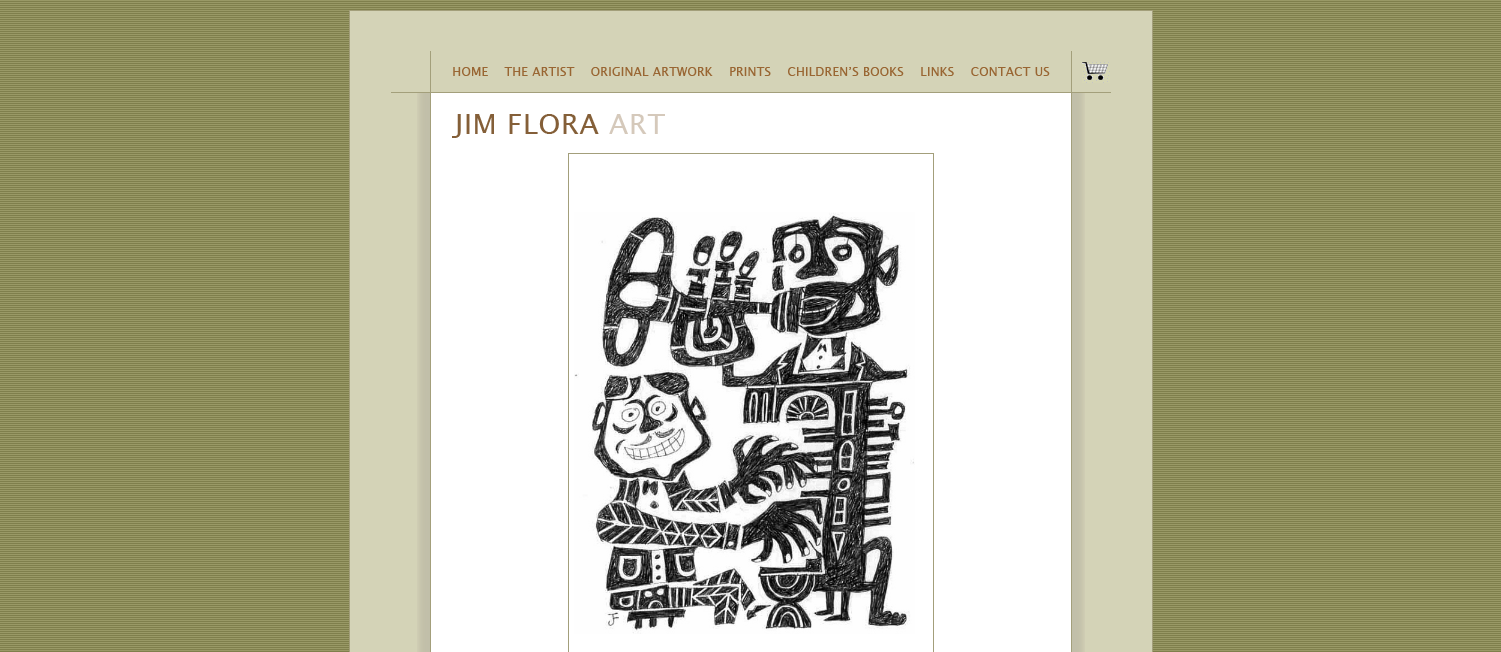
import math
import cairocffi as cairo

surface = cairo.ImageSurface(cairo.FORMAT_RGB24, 1501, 652)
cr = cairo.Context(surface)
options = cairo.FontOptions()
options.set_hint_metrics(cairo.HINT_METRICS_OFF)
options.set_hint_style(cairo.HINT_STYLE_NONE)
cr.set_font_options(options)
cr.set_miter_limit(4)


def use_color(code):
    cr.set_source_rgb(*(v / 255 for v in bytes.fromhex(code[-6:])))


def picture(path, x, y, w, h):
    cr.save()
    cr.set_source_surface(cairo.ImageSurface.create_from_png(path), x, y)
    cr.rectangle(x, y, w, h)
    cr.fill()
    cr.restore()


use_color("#ffffff")
cr.paint()
picture("img1.png", 0, 0, 1501, 10)
picture("img2.png", 0, 10, 1501, 642)
use_color("#d4d3b7")
cr.rectangle(349.5, 10.5, 803, 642)
cr.fill_preserve()
use_color("#a39f7b")
cr.set_line_width(1)
cr.stroke()
cr.rectangle(391, 92, 720, 1)
cr.fill()
cr.rectangle(1071, 51, 1, 41)
cr.fill()
cr.rectangle(430, 51, 1, 41)
cr.fill()
picture("img3.png", 453, 67, 35, 9)
picture("img4.png", 504, 67, 71, 9)
picture("img5.png", 591, 67, 122, 9)
picture("img6.png", 730, 67, 41, 9)
picture("img7.png", 788, 67, 116, 9)
picture("img8.png", 921, 67, 33, 9)
picture("img9.png", 971, 67, 79, 9)
picture("img10.png", 1082, 62, 28, 21)
picture("img11.png", 417, 93, 668, 559)
picture("img12.png", 452, 114, 213, 24)
cr.rectangle(1071, 93, 1, 559)
cr.fill()
cr.rectangle(430, 93, 1, 559)
cr.fill()
cr.rectangle(568.5, 153.5, 365, 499)
cr.stroke()
picture("img13.png", 574, 212, 341, 422)
surface.write_to_png("result.png")
